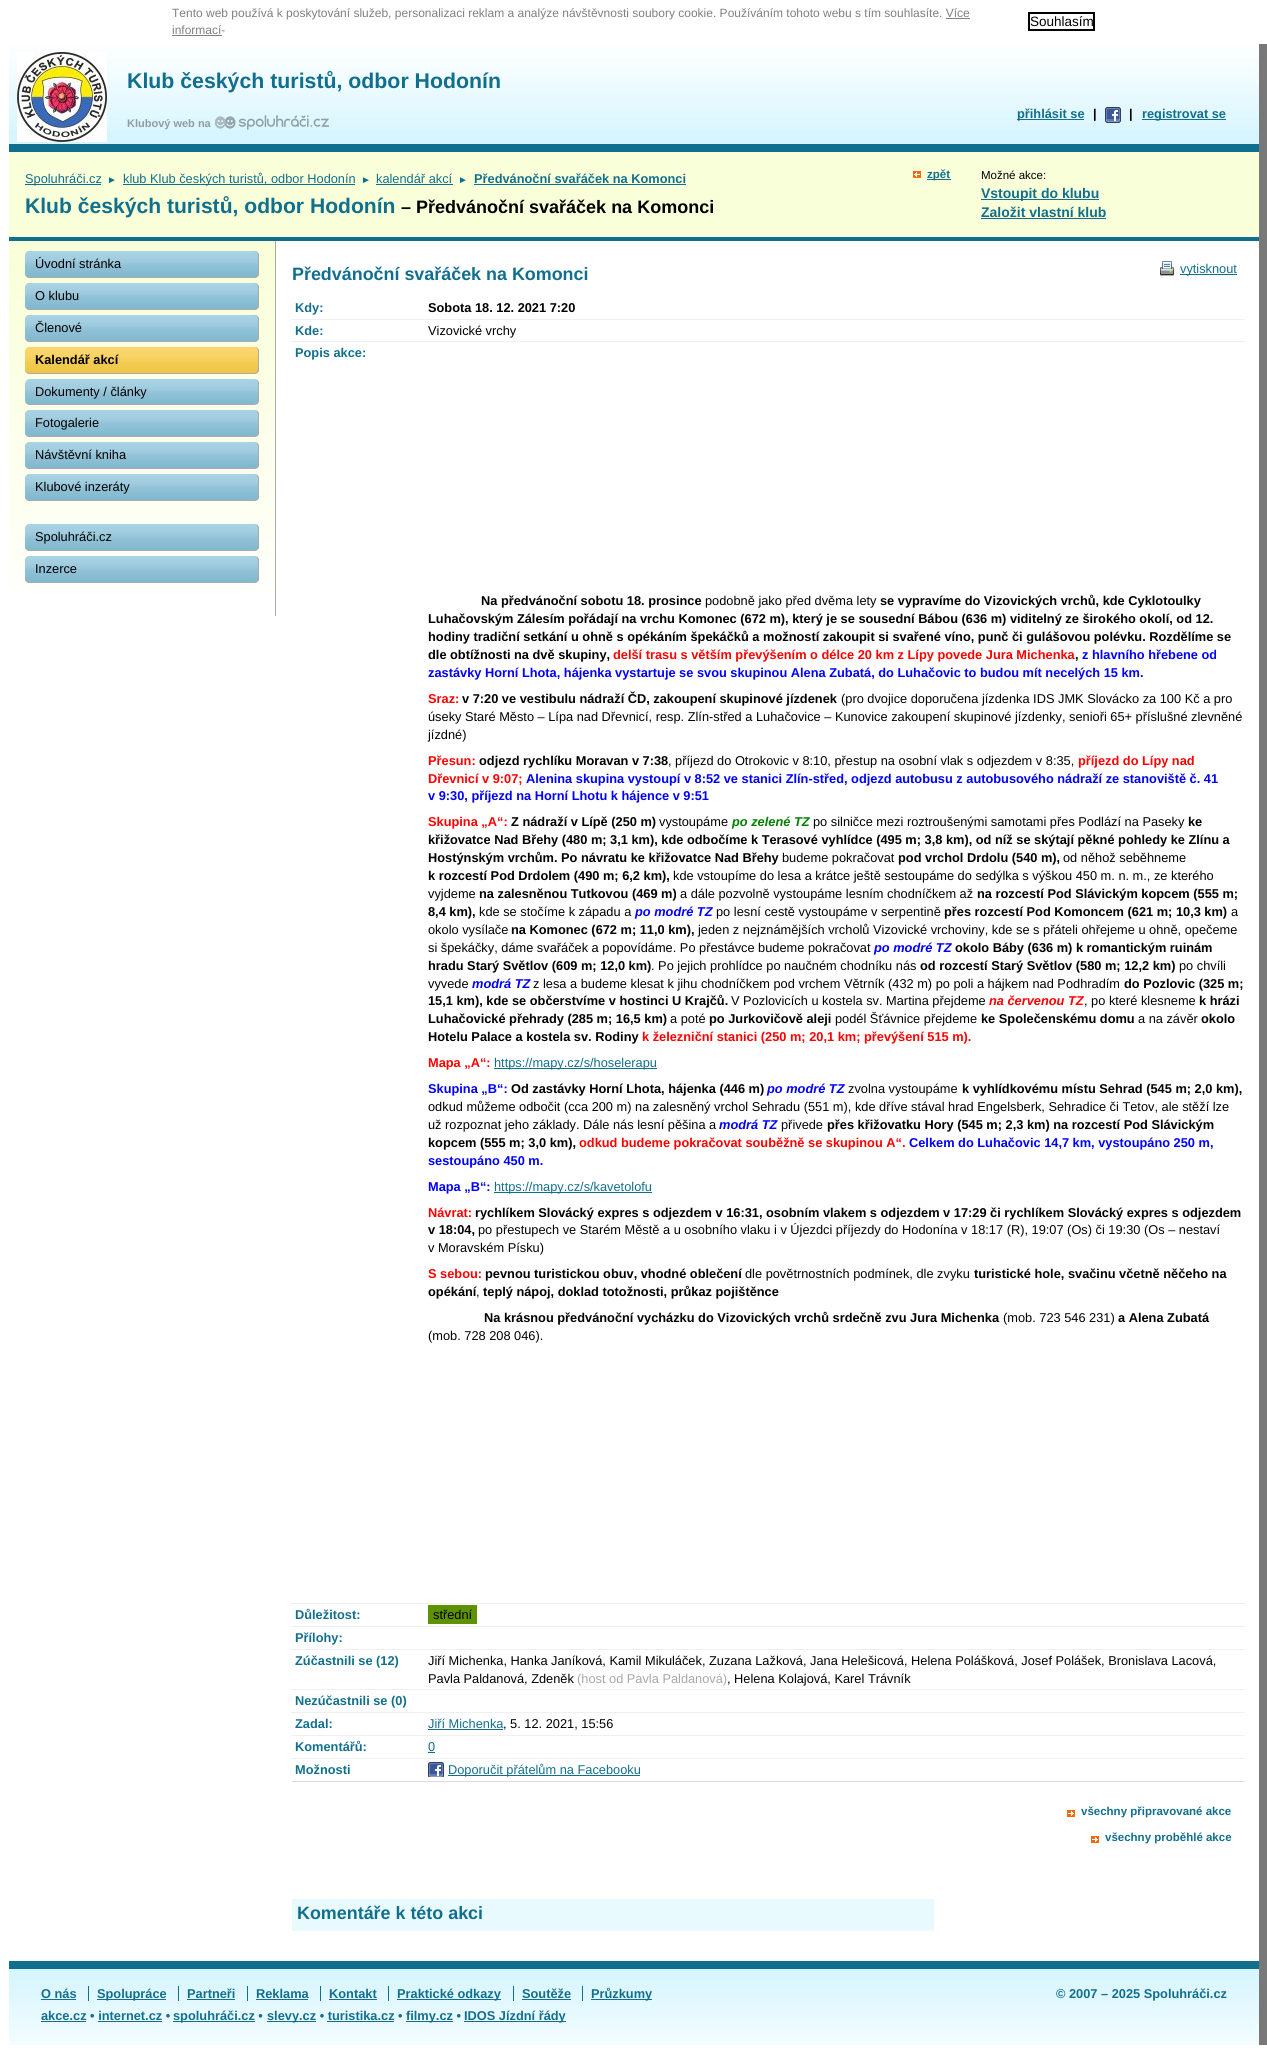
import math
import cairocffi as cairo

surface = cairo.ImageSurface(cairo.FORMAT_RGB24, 1267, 2051)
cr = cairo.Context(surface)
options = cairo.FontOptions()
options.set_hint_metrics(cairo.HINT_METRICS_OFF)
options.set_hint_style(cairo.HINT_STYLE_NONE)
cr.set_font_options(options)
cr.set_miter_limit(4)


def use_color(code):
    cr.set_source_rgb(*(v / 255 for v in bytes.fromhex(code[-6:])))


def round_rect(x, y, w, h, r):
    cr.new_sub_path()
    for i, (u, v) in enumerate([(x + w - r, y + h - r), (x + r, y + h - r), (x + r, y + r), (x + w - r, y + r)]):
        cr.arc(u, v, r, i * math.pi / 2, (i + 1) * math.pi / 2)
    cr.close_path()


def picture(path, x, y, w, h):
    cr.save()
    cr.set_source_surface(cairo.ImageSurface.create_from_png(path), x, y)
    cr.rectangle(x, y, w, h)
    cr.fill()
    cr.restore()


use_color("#ffffff")
cr.paint()
cr.select_font_face("Liberation Sans")
cr.set_font_size(12)
use_color("#808080")
cr.move_to(172, 17)
cr.show_text("Tento web používá k poskytování služeb, personalizaci reklam a analýze návštěvnosti soubory cookie. Používáním tohoto webu s tím souhlasíte. Více")
cr.move_to(172, 34)
cr.show_text("informací-")
cr.rectangle(946, 18, 24, 1)
cr.fill()
cr.rectangle(172, 35, 50, 1)
cr.fill()
cr.rectangle(1029, 13, 65, 17)
use_color("#000000")
cr.stroke()
cr.set_font_size(13.5)
cr.move_to(1030, 26)
cr.show_text("Souhlasím")
picture("img1.png", 1259, 44, 8, 2001)
use_color("#d6f5ff")
cr.rectangle(9, 130, 1250, 14)
cr.fill()
picture("img2.png", 9, 44, 1250, 86)
use_color("#116f8e")
cr.rectangle(9, 144, 1250, 8)
cr.fill()
picture("img3.png", 17, 52, 90, 90)
cr.select_font_face("Liberation Sans", cairo.FONT_SLANT_NORMAL, cairo.FONT_WEIGHT_BOLD)
cr.set_font_size(21.3)
cr.move_to(127, 88)
cr.show_text("Klub českých turistů, odbor Hodonín")
cr.set_font_size(11)
use_color("#8f9da2")
cr.move_to(127, 127)
cr.show_text("Klubový web na")
picture("img4.png", 215, 115, 114, 15)
use_color("#116f8e")
cr.rectangle(1017, 119, 67, 1)
cr.fill()
cr.set_font_size(12.8)
cr.move_to(1017, 118)
cr.show_text("přihlásit se")
use_color("#000000")
cr.move_to(1093, 118)
cr.show_text("|")
picture("img5.png", 1105, 107, 16, 16)
cr.move_to(1129, 118)
cr.show_text("|")
use_color("#116f8e")
cr.rectangle(1142, 119, 84, 1)
cr.fill()
cr.move_to(1142, 118)
cr.show_text("registrovat se")
use_color("#f9ffd8")
cr.rectangle(9, 152, 1250, 85)
cr.fill()
use_color("#116f8e")
cr.rectangle(9, 237, 1250, 4)
cr.fill()
cr.rectangle(25, 184, 76, 1)
cr.fill()
cr.select_font_face("Liberation Sans")
cr.move_to(25, 183)
cr.show_text("Spoluhráči.cz")
cr.set_font_size(10)
cr.move_to(107, 183)
cr.show_text("►")
cr.rectangle(123, 184, 232, 1)
cr.fill()
cr.set_font_size(12.8)
cr.move_to(123, 183)
cr.show_text("klub Klub českých turistů, odbor Hodonín")
cr.set_font_size(10)
cr.move_to(361, 183)
cr.show_text("►")
cr.set_font_size(12.8)
cr.move_to(376, 183)
cr.show_text("kalendář akcí")
cr.rectangle(376, 184, 77, 1)
cr.fill()
cr.set_font_size(10)
cr.move_to(458, 183)
cr.show_text("►")
cr.select_font_face("Liberation Sans", cairo.FONT_SLANT_NORMAL, cairo.FONT_WEIGHT_BOLD)
cr.set_font_size(12.8)
cr.move_to(474, 183)
cr.show_text("Předvánoční svařáček na Komonci")
cr.rectangle(474, 184, 212, 1)
cr.fill()
cr.set_font_size(21.1)
cr.move_to(25, 213)
cr.show_text("Klub českých turistů, odbor Hodonín")
cr.set_font_size(18)
use_color("#000000")
cr.move_to(401, 213)
cr.show_text("– Předvánoční svařáček na Komonci")
picture("img6.png", 913, 171, 8, 7)
use_color("#116f8e")
cr.rectangle(927, 179, 24, 1)
cr.fill()
cr.set_font_size(11.5)
cr.move_to(927, 178)
cr.show_text("zpět")
cr.select_font_face("Liberation Sans")
use_color("#000000")
cr.move_to(981, 179)
cr.show_text("Možné akce:")
use_color("#116f8e")
cr.rectangle(981, 199, 118, 1)
cr.fill()
cr.select_font_face("Liberation Sans", cairo.FONT_SLANT_NORMAL, cairo.FONT_WEIGHT_BOLD)
cr.set_font_size(14)
cr.move_to(981, 198)
cr.show_text("Vstoupit do klubu")
cr.move_to(981, 217)
cr.show_text("Založit vlastní klub")
cr.rectangle(981, 218, 125, 1)
cr.fill()
picture("img7.png", 9, 241, 266, 352)
use_color("#aaaaaa")
cr.rectangle(275, 241, 1, 375)
cr.fill()
use_color("#83b9cf")
round_rect(25, 251, 234, 27, 5)
cr.fill()
picture("img8.png", 25, 251, 234, 25)
use_color("#aaaaaa")
cr.set_fill_rule(cairo.FILL_RULE_EVEN_ODD)
cr.new_path()
cr.move_to(30, 251)
cr.line_to(254, 251)
cr.curve_to(257, 251, 259, 253, 259, 256)
cr.line_to(259, 273)
cr.curve_to(259, 276, 257, 278, 254, 278)
cr.line_to(30, 278)
cr.curve_to(27, 278, 25, 276, 25, 273)
cr.line_to(25, 256)
cr.curve_to(25, 253, 27, 251, 30, 251)
cr.close_path()
cr.move_to(30, 251)
cr.line_to(254, 251)
cr.curve_to(256, 251, 258, 253, 258, 256)
cr.line_to(258, 273)
cr.curve_to(258, 275, 256, 277, 254, 277)
cr.line_to(30, 277)
cr.curve_to(27, 277, 25, 275, 25, 273)
cr.line_to(25, 256)
cr.curve_to(25, 253, 27, 251, 30, 251)
cr.close_path()
cr.fill()
cr.select_font_face("Liberation Sans")
cr.set_font_size(12.8)
use_color("#000000")
cr.move_to(35, 268)
cr.show_text("Úvodní stránka")
use_color("#83b9cf")
round_rect(25, 283, 234, 27, 5)
cr.fill()
picture("img9.png", 25, 283, 234, 25)
use_color("#aaaaaa")
cr.new_path()
cr.move_to(30, 283)
cr.line_to(254, 283)
cr.curve_to(257, 283, 259, 285, 259, 288)
cr.line_to(259, 305)
cr.curve_to(259, 308, 257, 310, 254, 310)
cr.line_to(30, 310)
cr.curve_to(27, 310, 25, 308, 25, 305)
cr.line_to(25, 288)
cr.curve_to(25, 285, 27, 283, 30, 283)
cr.close_path()
cr.move_to(30, 283)
cr.line_to(254, 283)
cr.curve_to(256, 283, 258, 285, 258, 288)
cr.line_to(258, 305)
cr.curve_to(258, 307, 256, 309, 254, 309)
cr.line_to(30, 309)
cr.curve_to(27, 309, 25, 307, 25, 305)
cr.line_to(25, 288)
cr.curve_to(25, 285, 27, 283, 30, 283)
cr.close_path()
cr.fill()
use_color("#000000")
cr.move_to(35, 300)
cr.show_text("O klubu")
use_color("#83b9cf")
round_rect(25, 315, 234, 27, 5)
cr.fill()
picture("img10.png", 25, 315, 234, 25)
use_color("#aaaaaa")
cr.new_path()
cr.move_to(30, 315)
cr.line_to(254, 315)
cr.curve_to(257, 315, 259, 317, 259, 320)
cr.line_to(259, 337)
cr.curve_to(259, 340, 257, 342, 254, 342)
cr.line_to(30, 342)
cr.curve_to(27, 342, 25, 340, 25, 337)
cr.line_to(25, 320)
cr.curve_to(25, 317, 27, 315, 30, 315)
cr.close_path()
cr.move_to(30, 315)
cr.line_to(254, 315)
cr.curve_to(256, 315, 258, 317, 258, 320)
cr.line_to(258, 337)
cr.curve_to(258, 339, 256, 341, 254, 341)
cr.line_to(30, 341)
cr.curve_to(27, 341, 25, 339, 25, 337)
cr.line_to(25, 320)
cr.curve_to(25, 317, 27, 315, 30, 315)
cr.close_path()
cr.fill()
use_color("#000000")
cr.move_to(35, 332)
cr.show_text("Členové")
use_color("#efc647")
round_rect(25, 347, 234, 27, 5)
cr.fill()
picture("img11.png", 25, 347, 234, 25)
use_color("#aaaaaa")
cr.new_path()
cr.move_to(30, 347)
cr.line_to(254, 347)
cr.curve_to(257, 347, 259, 349, 259, 352)
cr.line_to(259, 369)
cr.curve_to(259, 372, 257, 374, 254, 374)
cr.line_to(30, 374)
cr.curve_to(27, 374, 25, 372, 25, 369)
cr.line_to(25, 352)
cr.curve_to(25, 349, 27, 347, 30, 347)
cr.close_path()
cr.move_to(30, 347)
cr.line_to(254, 347)
cr.curve_to(256, 347, 258, 349, 258, 352)
cr.line_to(258, 369)
cr.curve_to(258, 371, 256, 373, 254, 373)
cr.line_to(30, 373)
cr.curve_to(27, 373, 25, 371, 25, 369)
cr.line_to(25, 352)
cr.curve_to(25, 349, 27, 347, 30, 347)
cr.close_path()
cr.fill()
cr.select_font_face("Liberation Sans", cairo.FONT_SLANT_NORMAL, cairo.FONT_WEIGHT_BOLD)
use_color("#000000")
cr.move_to(35, 364)
cr.show_text("Kalendář akcí")
picture("img12.png", 25, 379, 234, 25)
use_color("#aaaaaa")
cr.new_path()
cr.move_to(30, 379)
cr.line_to(254, 379)
cr.curve_to(257, 379, 259, 381, 259, 384)
cr.line_to(259, 400)
cr.curve_to(259, 403, 257, 405, 254, 405)
cr.line_to(30, 405)
cr.curve_to(27, 405, 25, 403, 25, 400)
cr.line_to(25, 384)
cr.curve_to(25, 381, 27, 379, 30, 379)
cr.close_path()
cr.move_to(30, 379)
cr.line_to(254, 379)
cr.curve_to(256, 379, 258, 381, 258, 384)
cr.line_to(258, 400)
cr.curve_to(258, 402, 256, 404, 254, 404)
cr.line_to(30, 404)
cr.curve_to(27, 404, 25, 402, 25, 400)
cr.line_to(25, 384)
cr.curve_to(25, 381, 27, 379, 30, 379)
cr.close_path()
cr.fill()
cr.select_font_face("Liberation Sans")
use_color("#000000")
cr.move_to(35, 396)
cr.show_text("Dokumenty / články")
use_color("#83b9cf")
round_rect(25, 410, 234, 27, 5)
cr.fill()
picture("img13.png", 25, 410, 234, 25)
use_color("#aaaaaa")
cr.new_path()
cr.move_to(30, 410)
cr.line_to(254, 410)
cr.curve_to(257, 410, 259, 412, 259, 415)
cr.line_to(259, 432)
cr.curve_to(259, 435, 257, 437, 254, 437)
cr.line_to(30, 437)
cr.curve_to(27, 437, 25, 435, 25, 432)
cr.line_to(25, 415)
cr.curve_to(25, 412, 27, 410, 30, 410)
cr.close_path()
cr.move_to(30, 410)
cr.line_to(254, 410)
cr.curve_to(256, 410, 258, 412, 258, 415)
cr.line_to(258, 432)
cr.curve_to(258, 434, 256, 436, 254, 436)
cr.line_to(30, 436)
cr.curve_to(27, 436, 25, 434, 25, 432)
cr.line_to(25, 415)
cr.curve_to(25, 412, 27, 410, 30, 410)
cr.close_path()
cr.fill()
use_color("#000000")
cr.move_to(35, 427)
cr.show_text("Fotogalerie")
use_color("#83b9cf")
round_rect(25, 442, 234, 27, 5)
cr.fill()
picture("img14.png", 25, 442, 234, 25)
use_color("#aaaaaa")
cr.new_path()
cr.move_to(30, 442)
cr.line_to(254, 442)
cr.curve_to(257, 442, 259, 444, 259, 447)
cr.line_to(259, 464)
cr.curve_to(259, 467, 257, 469, 254, 469)
cr.line_to(30, 469)
cr.curve_to(27, 469, 25, 467, 25, 464)
cr.line_to(25, 447)
cr.curve_to(25, 444, 27, 442, 30, 442)
cr.close_path()
cr.move_to(30, 442)
cr.line_to(254, 442)
cr.curve_to(256, 442, 258, 444, 258, 447)
cr.line_to(258, 464)
cr.curve_to(258, 466, 256, 468, 254, 468)
cr.line_to(30, 468)
cr.curve_to(27, 468, 25, 466, 25, 464)
cr.line_to(25, 447)
cr.curve_to(25, 444, 27, 442, 30, 442)
cr.close_path()
cr.fill()
use_color("#000000")
cr.move_to(35, 459)
cr.show_text("Návštěvní kniha")
use_color("#83b9cf")
round_rect(25, 474, 234, 27, 5)
cr.fill()
picture("img15.png", 25, 474, 234, 25)
use_color("#aaaaaa")
cr.new_path()
cr.move_to(30, 474)
cr.line_to(254, 474)
cr.curve_to(257, 474, 259, 476, 259, 479)
cr.line_to(259, 496)
cr.curve_to(259, 499, 257, 501, 254, 501)
cr.line_to(30, 501)
cr.curve_to(27, 501, 25, 499, 25, 496)
cr.line_to(25, 479)
cr.curve_to(25, 476, 27, 474, 30, 474)
cr.close_path()
cr.move_to(30, 474)
cr.line_to(254, 474)
cr.curve_to(256, 474, 258, 476, 258, 479)
cr.line_to(258, 496)
cr.curve_to(258, 498, 256, 500, 254, 500)
cr.line_to(30, 500)
cr.curve_to(27, 500, 25, 498, 25, 496)
cr.line_to(25, 479)
cr.curve_to(25, 476, 27, 474, 30, 474)
cr.close_path()
cr.fill()
use_color("#000000")
cr.move_to(35, 491)
cr.show_text("Klubové inzeráty")
use_color("#83b9cf")
round_rect(25, 524, 234, 27, 5)
cr.fill()
picture("img16.png", 25, 524, 234, 25)
use_color("#aaaaaa")
cr.new_path()
cr.move_to(30, 524)
cr.line_to(254, 524)
cr.curve_to(257, 524, 259, 526, 259, 529)
cr.line_to(259, 546)
cr.curve_to(259, 549, 257, 551, 254, 551)
cr.line_to(30, 551)
cr.curve_to(27, 551, 25, 549, 25, 546)
cr.line_to(25, 529)
cr.curve_to(25, 526, 27, 524, 30, 524)
cr.close_path()
cr.move_to(30, 524)
cr.line_to(254, 524)
cr.curve_to(256, 524, 258, 526, 258, 529)
cr.line_to(258, 546)
cr.curve_to(258, 548, 256, 550, 254, 550)
cr.line_to(30, 550)
cr.curve_to(27, 550, 25, 548, 25, 546)
cr.line_to(25, 529)
cr.curve_to(25, 526, 27, 524, 30, 524)
cr.close_path()
cr.fill()
use_color("#000000")
cr.move_to(35, 541)
cr.show_text("Spoluhráči.cz")
use_color("#83b9cf")
round_rect(25, 556, 234, 27, 5)
cr.fill()
picture("img17.png", 25, 556, 234, 25)
use_color("#aaaaaa")
cr.new_path()
cr.move_to(30, 556)
cr.line_to(254, 556)
cr.curve_to(257, 556, 259, 558, 259, 561)
cr.line_to(259, 578)
cr.curve_to(259, 581, 257, 583, 254, 583)
cr.line_to(30, 583)
cr.curve_to(27, 583, 25, 581, 25, 578)
cr.line_to(25, 561)
cr.curve_to(25, 558, 27, 556, 30, 556)
cr.close_path()
cr.move_to(30, 556)
cr.line_to(254, 556)
cr.curve_to(256, 556, 258, 558, 258, 561)
cr.line_to(258, 578)
cr.curve_to(258, 580, 256, 582, 254, 582)
cr.line_to(30, 582)
cr.curve_to(27, 582, 25, 580, 25, 578)
cr.line_to(25, 561)
cr.curve_to(25, 558, 27, 556, 30, 556)
cr.close_path()
cr.fill()
use_color("#000000")
cr.move_to(35, 573)
cr.show_text("Inzerce")
use_color("#dcdcdc")
cr.rectangle(292, 1781, 953, 1)
cr.fill()
cr.select_font_face("Liberation Sans", cairo.FONT_SLANT_NORMAL, cairo.FONT_WEIGHT_BOLD)
cr.set_font_size(17.9)
use_color("#116f8e")
cr.move_to(292, 280)
cr.show_text("Předvánoční svařáček na Komonci")
picture("img18.png", 1160, 261, 14, 15)
cr.rectangle(1180, 274, 57, 1)
cr.fill()
cr.select_font_face("Liberation Sans")
cr.set_font_size(12.8)
cr.move_to(1180, 273)
cr.show_text("vytisknout")
cr.select_font_face("Liberation Sans", cairo.FONT_SLANT_NORMAL, cairo.FONT_WEIGHT_BOLD)
cr.move_to(295, 312)
cr.show_text("Kdy:")
use_color("#000000")
cr.move_to(428, 312)
cr.show_text("Sobota 18. 12. 2021 7:20")
use_color("#116f8e")
cr.move_to(295, 335)
cr.show_text("Kde:")
use_color("#f0f0f0")
cr.rectangle(291, 319, 954, 1)
cr.fill()
cr.select_font_face("Liberation Sans")
use_color("#000000")
cr.move_to(428, 335)
cr.show_text("Vizovické vrchy")
cr.select_font_face("Liberation Sans", cairo.FONT_SLANT_NORMAL, cairo.FONT_WEIGHT_BOLD)
use_color("#116f8e")
cr.move_to(295, 357)
cr.show_text("Popis akce:")
use_color("#f0f0f0")
cr.rectangle(291, 341, 954, 1)
cr.fill()
use_color("#000000")
cr.move_to(481, 605)
cr.show_text("Na předvánoční sobotu 18. prosince")
cr.select_font_face("Liberation Sans")
cr.move_to(705, 605)
cr.show_text("podobně jako před dvěma lety")
cr.select_font_face("Liberation Sans", cairo.FONT_SLANT_NORMAL, cairo.FONT_WEIGHT_BOLD)
cr.move_to(880, 605)
cr.show_text("se vypravíme do Vizovických vrchů, kde Cyklotoulky")
cr.move_to(428, 623)
cr.show_text("Luhačovským Zálesím pořádají na vrchu Komonec (672 m), který je se sousední Bábou (636 m) viditelný ze širokého okolí, od 12.")
cr.move_to(428, 641)
cr.show_text("hodiny tradiční setkání u ohně s opékáním špekáčků a možností zakoupit si svařené víno, punč či gulášovou polévku. Rozdělíme se")
cr.move_to(428, 659)
cr.show_text("dle obtížnosti na dvě skupiny,")
use_color("#ff0000")
cr.move_to(613, 659)
cr.show_text("delší trasu s větším převýšením o délce 20 km z Lípy povede Jura Michenka")
use_color("#000000")
cr.move_to(1075, 659)
cr.show_text(",")
use_color("#0000ff")
cr.move_to(1082, 659)
cr.show_text("z hlavního hřebene od")
cr.move_to(428, 677)
cr.show_text("zastávky Horní Lhota, hájenka vystartuje se svou skupinou Alena Zubatá, do Luhačovic to budou mít necelých 15 km.")
use_color("#ff0000")
cr.move_to(428, 703)
cr.show_text("Sraz:")
use_color("#000000")
cr.move_to(462, 703)
cr.show_text("v 7:20 ve vestibulu nádraží ČD, zakoupení skupinové jízdenek")
cr.select_font_face("Liberation Sans")
cr.move_to(841, 703)
cr.show_text("(pro dvojice doporučena jízdenka IDS JMK Slovácko za 100 Kč a pro")
cr.move_to(428, 721)
cr.show_text("úseky Staré Město – Lípa nad Dřevnicí, resp. Zlín-střed a Luhačovice – Kunovice zakoupení skupinové jízdenky, senioři 65+ příslušné zlevněné")
cr.move_to(428, 739)
cr.show_text("jízdné)")
cr.select_font_face("Liberation Sans", cairo.FONT_SLANT_NORMAL, cairo.FONT_WEIGHT_BOLD)
use_color("#ff0000")
cr.move_to(428, 765)
cr.show_text("Přesun:")
use_color("#000000")
cr.move_to(479, 765)
cr.show_text("odjezd rychlíku Moravan v 7:38")
cr.select_font_face("Liberation Sans")
cr.move_to(668, 765)
cr.show_text(", příjezd do Otrokovic v 8:10, přestup na osobní vlak s odjezdem v 8:35,")
cr.select_font_face("Liberation Sans", cairo.FONT_SLANT_NORMAL, cairo.FONT_WEIGHT_BOLD)
use_color("#ff0000")
cr.move_to(1078, 765)
cr.show_text("příjezd do Lípy nad")
cr.move_to(428, 783)
cr.show_text("Dřevnicí v 9:07;")
use_color("#0000ff")
cr.move_to(526, 783)
cr.show_text("Alenina skupina vystoupí v 8:52 ve stanici Zlín-střed, odjezd autobusu z autobusového nádraží ze stanoviště č. 41")
cr.move_to(428, 800)
cr.show_text("v 9:30, příjezd na Horní Lhotu k hájence v 9:51")
use_color("#ff0000")
cr.move_to(428, 826)
cr.show_text("Skupina „A“:")
use_color("#000000")
cr.move_to(511, 826)
cr.show_text("Z nádraží v Lípě (250 m)")
cr.select_font_face("Liberation Sans")
cr.move_to(659, 826)
cr.show_text("vystoupáme")
cr.select_font_face("Liberation Sans", cairo.FONT_SLANT_ITALIC, cairo.FONT_WEIGHT_BOLD)
use_color("#008000")
cr.move_to(732, 826)
cr.show_text("po zelené TZ")
cr.select_font_face("Liberation Sans")
use_color("#000000")
cr.move_to(813, 826)
cr.show_text("po silničce mezi roztroušenými samotami přes Podlází na Paseky")
cr.select_font_face("Liberation Sans", cairo.FONT_SLANT_NORMAL, cairo.FONT_WEIGHT_BOLD)
cr.move_to(1188, 826)
cr.show_text("ke")
cr.move_to(428, 844)
cr.show_text("křižovatce Nad Břehy (480 m; 3,1 km), kde odbočíme k Terasové vyhlídce (495 m; 3,8 km), od níž se skýtají pěkné pohledy ke Zlínu a")
cr.move_to(428, 862)
cr.show_text("Hostýnským vrchům. Po návratu ke křižovatce Nad Břehy")
cr.select_font_face("Liberation Sans")
cr.move_to(782, 862)
cr.show_text("budeme pokračovat")
cr.select_font_face("Liberation Sans", cairo.FONT_SLANT_NORMAL, cairo.FONT_WEIGHT_BOLD)
cr.move_to(898, 862)
cr.show_text("pod vrchol Drdolu (540 m),")
cr.select_font_face("Liberation Sans")
cr.move_to(1063, 862)
cr.show_text("od něhož seběhneme")
cr.select_font_face("Liberation Sans", cairo.FONT_SLANT_NORMAL, cairo.FONT_WEIGHT_BOLD)
cr.move_to(428, 880)
cr.show_text("k rozcestí Pod Drdolem (490 m; 6,2 km),")
cr.select_font_face("Liberation Sans")
cr.move_to(673, 880)
cr.show_text("kde vstoupíme do lesa a krátce ještě sestoupáme do sedýlka s výškou 450 m. n. m., ze kterého")
cr.move_to(428, 898)
cr.show_text("vyjdeme")
cr.select_font_face("Liberation Sans", cairo.FONT_SLANT_NORMAL, cairo.FONT_WEIGHT_BOLD)
cr.move_to(479, 898)
cr.show_text("na zalesněnou Tutkovou (469 m)")
cr.select_font_face("Liberation Sans")
cr.move_to(680, 898)
cr.show_text("a dále pozvolně vystoupáme lesním chodníčkem až")
cr.select_font_face("Liberation Sans", cairo.FONT_SLANT_NORMAL, cairo.FONT_WEIGHT_BOLD)
cr.move_to(977, 898)
cr.show_text("na rozcestí Pod Slávickým kopcem (555 m;")
cr.move_to(428, 916)
cr.show_text("8,4 km),")
cr.select_font_face("Liberation Sans")
cr.move_to(479, 916)
cr.show_text("kde se stočíme k západu a")
cr.select_font_face("Liberation Sans", cairo.FONT_SLANT_ITALIC, cairo.FONT_WEIGHT_BOLD)
use_color("#0000ff")
cr.move_to(635, 916)
cr.show_text("po modré TZ")
cr.select_font_face("Liberation Sans")
use_color("#000000")
cr.move_to(716, 916)
cr.show_text("po lesní cestě vystoupáme v serpentině")
cr.select_font_face("Liberation Sans", cairo.FONT_SLANT_NORMAL, cairo.FONT_WEIGHT_BOLD)
cr.move_to(944, 916)
cr.show_text("přes rozcestí Pod Komoncem (621 m; 10,3 km)")
cr.select_font_face("Liberation Sans")
cr.move_to(1231, 916)
cr.show_text("a")
cr.move_to(428, 934)
cr.show_text("okolo vysílače")
cr.select_font_face("Liberation Sans", cairo.FONT_SLANT_NORMAL, cairo.FONT_WEIGHT_BOLD)
cr.move_to(511, 934)
cr.show_text("na Komonec (672 m; 11,0 km),")
cr.select_font_face("Liberation Sans")
cr.move_to(698, 934)
cr.show_text("jeden z nejznámějších vrcholů Vizovické vrchoviny, kde se s přáteli ohřejeme u ohně, opečeme")
cr.move_to(428, 952)
cr.show_text("si špekáčky, dáme svařáček a popovídáme. Po přestávce budeme pokračovat")
cr.select_font_face("Liberation Sans", cairo.FONT_SLANT_ITALIC, cairo.FONT_WEIGHT_BOLD)
use_color("#0000ff")
cr.move_to(874, 952)
cr.show_text("po modré TZ")
cr.select_font_face("Liberation Sans", cairo.FONT_SLANT_NORMAL, cairo.FONT_WEIGHT_BOLD)
use_color("#000000")
cr.move_to(955, 952)
cr.show_text("okolo Báby (636 m) k romantickým ruinám")
cr.move_to(428, 970)
cr.show_text("hradu Starý Světlov (609 m; 12,0 km)")
cr.select_font_face("Liberation Sans")
cr.move_to(651, 970)
cr.show_text(". Po jejich prohlídce po naučném chodníku nás")
cr.select_font_face("Liberation Sans", cairo.FONT_SLANT_NORMAL, cairo.FONT_WEIGHT_BOLD)
cr.move_to(920, 970)
cr.show_text("od rozcestí Starý Světlov (580 m; 12,2 km)")
cr.select_font_face("Liberation Sans")
cr.move_to(1179, 970)
cr.show_text("po chvíli")
cr.move_to(428, 988)
cr.show_text("vyvede")
cr.select_font_face("Liberation Sans", cairo.FONT_SLANT_ITALIC, cairo.FONT_WEIGHT_BOLD)
use_color("#0000ff")
cr.move_to(472, 988)
cr.show_text("modrá TZ")
cr.select_font_face("Liberation Sans")
use_color("#000000")
cr.move_to(533, 988)
cr.show_text("z lesa a budeme klesat k jihu chodníčkem pod vrchem Větrník (432 m) po poli a hájkem nad Podhradím")
cr.select_font_face("Liberation Sans", cairo.FONT_SLANT_NORMAL, cairo.FONT_WEIGHT_BOLD)
cr.move_to(1124, 988)
cr.show_text("do Pozlovic (325 m;")
cr.move_to(428, 1005)
cr.show_text("15,1 km), kde se občerstvíme v hostinci U Krajčů.")
cr.select_font_face("Liberation Sans")
cr.move_to(731, 1005)
cr.show_text("V Pozlovicích u kostela sv. Martina přejdeme")
cr.select_font_face("Liberation Sans", cairo.FONT_SLANT_ITALIC, cairo.FONT_WEIGHT_BOLD)
use_color("#ff0000")
cr.move_to(989, 1005)
cr.show_text("na červenou TZ")
cr.select_font_face("Liberation Sans")
use_color("#000000")
cr.move_to(1084, 1005)
cr.show_text(", po které klesneme")
cr.select_font_face("Liberation Sans", cairo.FONT_SLANT_NORMAL, cairo.FONT_WEIGHT_BOLD)
cr.move_to(1199, 1005)
cr.show_text("k hrázi")
cr.move_to(428, 1023)
cr.show_text("Luhačovické přehrady (285 m; 16,5 km)")
cr.select_font_face("Liberation Sans")
cr.move_to(670, 1023)
cr.show_text("a poté")
cr.select_font_face("Liberation Sans", cairo.FONT_SLANT_NORMAL, cairo.FONT_WEIGHT_BOLD)
cr.move_to(709, 1023)
cr.show_text("po Jurkovičově aleji")
cr.select_font_face("Liberation Sans")
cr.move_to(835, 1023)
cr.show_text("podél Šťávnice přejdeme")
cr.select_font_face("Liberation Sans", cairo.FONT_SLANT_NORMAL, cairo.FONT_WEIGHT_BOLD)
cr.move_to(981, 1023)
cr.show_text("ke Společenskému domu")
cr.select_font_face("Liberation Sans")
cr.move_to(1138, 1023)
cr.show_text("a na závěr")
cr.select_font_face("Liberation Sans", cairo.FONT_SLANT_NORMAL, cairo.FONT_WEIGHT_BOLD)
cr.move_to(1201, 1023)
cr.show_text("okolo")
cr.move_to(428, 1041)
cr.show_text("Hotelu Palace a kostela sv. Rodiny")
use_color("#ff0000")
cr.move_to(642, 1041)
cr.show_text("k železniční stanici (250 m; 20,1 km; převýšení 515 m).")
cr.move_to(428, 1067)
cr.show_text("Mapa „A“:")
use_color("#116f8e")
cr.rectangle(494, 1068, 163, 1)
cr.fill()
cr.select_font_face("Liberation Sans")
cr.move_to(494, 1067)
cr.show_text("https://mapy.cz/s/hoselerapu")
cr.select_font_face("Liberation Sans", cairo.FONT_SLANT_NORMAL, cairo.FONT_WEIGHT_BOLD)
use_color("#0000ff")
cr.move_to(428, 1093)
cr.show_text("Skupina „B“:")
use_color("#000000")
cr.move_to(511, 1093)
cr.show_text("Od zastávky Horní Lhota, hájenka (446 m)")
cr.select_font_face("Liberation Sans", cairo.FONT_SLANT_ITALIC, cairo.FONT_WEIGHT_BOLD)
use_color("#0000ff")
cr.move_to(767, 1093)
cr.show_text("po modré TZ")
cr.select_font_face("Liberation Sans")
use_color("#000000")
cr.move_to(848, 1093)
cr.show_text("zvolna vystoupáme")
cr.select_font_face("Liberation Sans", cairo.FONT_SLANT_NORMAL, cairo.FONT_WEIGHT_BOLD)
cr.move_to(962, 1093)
cr.show_text("k vyhlídkovému místu Sehrad (545 m; 2,0 km),")
cr.select_font_face("Liberation Sans")
cr.move_to(428, 1111)
cr.show_text("odkud můžeme odbočit (cca 200 m) na zalesněný vrchol Sehradu (551 m), kde dříve stával hrad Engelsberk, Sehradice či Tetov, ale stěží lze")
cr.move_to(428, 1129)
cr.show_text("už rozpoznat jeho základy. Dále nás lesní pěšina a")
cr.select_font_face("Liberation Sans", cairo.FONT_SLANT_ITALIC, cairo.FONT_WEIGHT_BOLD)
use_color("#0000ff")
cr.move_to(719, 1129)
cr.show_text("modrá TZ")
cr.select_font_face("Liberation Sans")
use_color("#000000")
cr.move_to(781, 1129)
cr.show_text("přivede")
cr.select_font_face("Liberation Sans", cairo.FONT_SLANT_NORMAL, cairo.FONT_WEIGHT_BOLD)
cr.move_to(827, 1129)
cr.show_text("přes křižovatku Hory (545 m; 2,3 km) na rozcestí Pod Slávickým")
cr.move_to(428, 1147)
cr.show_text("kopcem (555 m; 3,0 km),")
use_color("#ff0000")
cr.move_to(579, 1147)
cr.show_text("odkud budeme pokračovat souběžně se skupinou A“.")
use_color("#0000ff")
cr.move_to(909, 1147)
cr.show_text("Celkem do Luhačovic 14,7 km, vystoupáno 250 m,")
cr.move_to(428, 1165)
cr.show_text("sestoupáno 450 m.")
cr.move_to(428, 1191)
cr.show_text("Mapa „B“:")
use_color("#116f8e")
cr.rectangle(494, 1192, 158, 1)
cr.fill()
cr.select_font_face("Liberation Sans")
cr.move_to(494, 1191)
cr.show_text("https://mapy.cz/s/kavetolofu")
cr.select_font_face("Liberation Sans", cairo.FONT_SLANT_NORMAL, cairo.FONT_WEIGHT_BOLD)
use_color("#ff0000")
cr.move_to(428, 1217)
cr.show_text("Návrat:")
use_color("#000000")
cr.move_to(475, 1217)
cr.show_text("rychlíkem Slovácký expres s odjezdem v 16:31, osobním vlakem s odjezdem v 17:29 či rychlíkem Slovácký expres s odjezdem")
cr.move_to(428, 1234)
cr.show_text("v 18:04,")
cr.select_font_face("Liberation Sans")
cr.move_to(478, 1234)
cr.show_text("po přestupech ve Starém Městě a u osobního vlaku i v Újezdci příjezdy do Hodonína v 18:17 (R), 19:07 (Os) či 19:30 (Os – nestaví")
cr.move_to(428, 1252)
cr.show_text("v Moravském Písku)")
cr.select_font_face("Liberation Sans", cairo.FONT_SLANT_NORMAL, cairo.FONT_WEIGHT_BOLD)
use_color("#ff0000")
cr.move_to(428, 1278)
cr.show_text("S sebou:")
use_color("#000000")
cr.move_to(485, 1278)
cr.show_text("pevnou turistickou obuv, vhodné oblečení")
cr.select_font_face("Liberation Sans")
cr.move_to(745, 1278)
cr.show_text("dle povětrnostních podmínek, dle zvyku")
cr.select_font_face("Liberation Sans", cairo.FONT_SLANT_NORMAL, cairo.FONT_WEIGHT_BOLD)
cr.move_to(974, 1278)
cr.show_text("turistické hole, svačinu včetně něčeho na")
cr.move_to(428, 1296)
cr.show_text("opékání")
cr.select_font_face("Liberation Sans")
cr.move_to(476, 1296)
cr.show_text(",")
cr.select_font_face("Liberation Sans", cairo.FONT_SLANT_NORMAL, cairo.FONT_WEIGHT_BOLD)
cr.move_to(483, 1296)
cr.show_text("teplý nápoj, doklad totožnosti, průkaz pojištěnce")
cr.move_to(484, 1322)
cr.show_text("Na krásnou předvánoční vycházku do Vizovických vrchů srdečně zvu Jura Michenka")
cr.select_font_face("Liberation Sans")
cr.move_to(1003, 1322)
cr.show_text("(mob. 723 546 231)")
cr.select_font_face("Liberation Sans", cairo.FONT_SLANT_NORMAL, cairo.FONT_WEIGHT_BOLD)
cr.move_to(1118, 1322)
cr.show_text("a Alena Zubatá")
cr.select_font_face("Liberation Sans")
cr.move_to(428, 1340)
cr.show_text("(mob. 728 208 046).")
cr.select_font_face("Liberation Sans", cairo.FONT_SLANT_NORMAL, cairo.FONT_WEIGHT_BOLD)
use_color("#116f8e")
cr.move_to(295, 1619)
cr.show_text("Důležitost:")
use_color("#f0f0f0")
cr.rectangle(291, 1603, 954, 1)
cr.fill()
use_color("#5e9200")
cr.rectangle(428, 1605, 49, 19)
cr.fill()
cr.select_font_face("Liberation Sans")
use_color("#000000")
cr.move_to(433, 1619)
cr.show_text("střední")
use_color("#f0f0f0")
cr.rectangle(291, 1626, 954, 1)
cr.fill()
cr.select_font_face("Liberation Sans", cairo.FONT_SLANT_NORMAL, cairo.FONT_WEIGHT_BOLD)
use_color("#116f8e")
cr.move_to(295, 1642)
cr.show_text("Přílohy:")
cr.move_to(295, 1665)
cr.show_text("Zúčastnili se (12)")
use_color("#f0f0f0")
cr.rectangle(291, 1649, 954, 1)
cr.fill()
cr.select_font_face("Liberation Sans")
use_color("#000000")
cr.move_to(428, 1665)
cr.show_text("Jiří Michenka, Hanka Janíková, Kamil Mikuláček, Zuzana Lažková, Jana Helešicová, Helena Polášková, Josef Polášek, Bronislava Lacová,")
cr.move_to(428, 1683)
cr.show_text("Pavla Paldanová, Zdeněk")
use_color("#a8a8a8")
cr.move_to(577, 1683)
cr.show_text("(host od Pavla Paldanová)")
use_color("#000000")
cr.move_to(727, 1683)
cr.show_text(", Helena Kolajová, Karel Trávník")
use_color("#f0f0f0")
cr.rectangle(291, 1689, 954, 1)
cr.fill()
cr.select_font_face("Liberation Sans", cairo.FONT_SLANT_NORMAL, cairo.FONT_WEIGHT_BOLD)
use_color("#116f8e")
cr.move_to(295, 1705)
cr.show_text("Nezúčastnili se (0)")
cr.move_to(295, 1728)
cr.show_text("Zadal:")
use_color("#f0f0f0")
cr.rectangle(291, 1712, 954, 1)
cr.fill()
cr.select_font_face("Liberation Sans")
use_color("#116f8e")
cr.move_to(428, 1728)
cr.show_text("Jiří Michenka")
cr.rectangle(428, 1729, 75, 1)
cr.fill()
use_color("#000000")
cr.move_to(503, 1728)
cr.show_text(", 5. 12. 2021, 15:56")
cr.select_font_face("Liberation Sans", cairo.FONT_SLANT_NORMAL, cairo.FONT_WEIGHT_BOLD)
use_color("#116f8e")
cr.move_to(295, 1751)
cr.show_text("Komentářů:")
use_color("#f0f0f0")
cr.rectangle(291, 1735, 954, 1)
cr.fill()
cr.select_font_face("Liberation Sans")
use_color("#116f8e")
cr.move_to(428, 1751)
cr.show_text("0")
cr.rectangle(428, 1752, 7, 1)
cr.fill()
cr.select_font_face("Liberation Sans", cairo.FONT_SLANT_NORMAL, cairo.FONT_WEIGHT_BOLD)
cr.move_to(295, 1774)
cr.show_text("Možnosti")
use_color("#f0f0f0")
cr.rectangle(291, 1758, 954, 1)
cr.fill()
picture("img19.png", 428, 1762, 16, 15)
use_color("#116f8e")
cr.rectangle(448, 1775, 192, 1)
cr.fill()
cr.select_font_face("Liberation Sans")
cr.move_to(448, 1774)
cr.show_text("Doporučit přátelům na Facebooku")
picture("img20.png", 1067, 1810, 8, 7)
cr.select_font_face("Liberation Sans", cairo.FONT_SLANT_NORMAL, cairo.FONT_WEIGHT_BOLD)
cr.set_font_size(11.5)
cr.move_to(1081, 1815)
cr.show_text("všechny připravované akce")
picture("img20.png", 1091, 1836, 8, 7)
cr.move_to(1105, 1841)
cr.show_text("všechny proběhlé akce")
use_color("#e9faff")
cr.rectangle(292, 1899, 642, 32)
cr.fill()
cr.set_font_size(17.9)
use_color("#116f8e")
cr.move_to(297, 1919)
cr.show_text("Komentáře k této akci")
picture("img21.png", 9, 1969, 1250, 76)
cr.rectangle(9, 1961, 1250, 8)
cr.fill()
cr.set_font_size(12.8)
cr.move_to(41, 1998)
cr.show_text("O nás")
cr.rectangle(41, 1999, 35, 1)
cr.fill()
cr.rectangle(97, 1999, 69, 1)
cr.fill()
cr.move_to(97, 1998)
cr.show_text("Spolupráce")
cr.rectangle(88, 1986, 1, 15)
cr.fill()
cr.move_to(187, 1998)
cr.show_text("Partneři")
cr.rectangle(178, 1986, 1, 15)
cr.fill()
cr.rectangle(187, 1999, 48, 1)
cr.fill()
cr.move_to(256, 1998)
cr.show_text("Reklama")
cr.rectangle(247, 1986, 1, 15)
cr.fill()
cr.rectangle(256, 1999, 52, 1)
cr.fill()
cr.move_to(329, 1998)
cr.show_text("Kontakt")
cr.rectangle(320, 1986, 1, 15)
cr.fill()
cr.rectangle(329, 1999, 48, 1)
cr.fill()
cr.rectangle(397, 1999, 104, 1)
cr.fill()
cr.move_to(397, 1998)
cr.show_text("Praktické odkazy")
cr.rectangle(388, 1986, 1, 15)
cr.fill()
cr.move_to(522, 1998)
cr.show_text("Soutěže")
cr.rectangle(513, 1986, 1, 15)
cr.fill()
cr.rectangle(522, 1999, 49, 1)
cr.fill()
cr.rectangle(591, 1999, 61, 1)
cr.fill()
cr.move_to(591, 1998)
cr.show_text("Průzkumy")
cr.rectangle(582, 1986, 1, 15)
cr.fill()
cr.move_to(1056, 1998)
cr.show_text("© 2007 – 2025 Spoluhráči.cz")
cr.move_to(41, 2020)
cr.show_text("akce.cz • internet.cz •")
cr.rectangle(41, 2021, 45, 1)
cr.fill()
cr.rectangle(173, 2021, 82, 1)
cr.fill()
cr.move_to(173, 2020)
cr.show_text("spoluhráči.cz •")
cr.rectangle(267, 2021, 49, 1)
cr.fill()
cr.move_to(267, 2020)
cr.show_text("slevy.cz • turistika.cz •")
cr.rectangle(406, 2021, 47, 1)
cr.fill()
cr.move_to(406, 2020)
cr.show_text("filmy.cz •")
cr.rectangle(464, 2021, 102, 1)
cr.fill()
cr.move_to(464, 2020)
cr.show_text("IDOS Jízdní řády")
cr.rectangle(98, 2021, 64, 1)
cr.fill()
cr.rectangle(327, 2021, 67, 1)
cr.fill()
surface.write_to_png("result.png")
